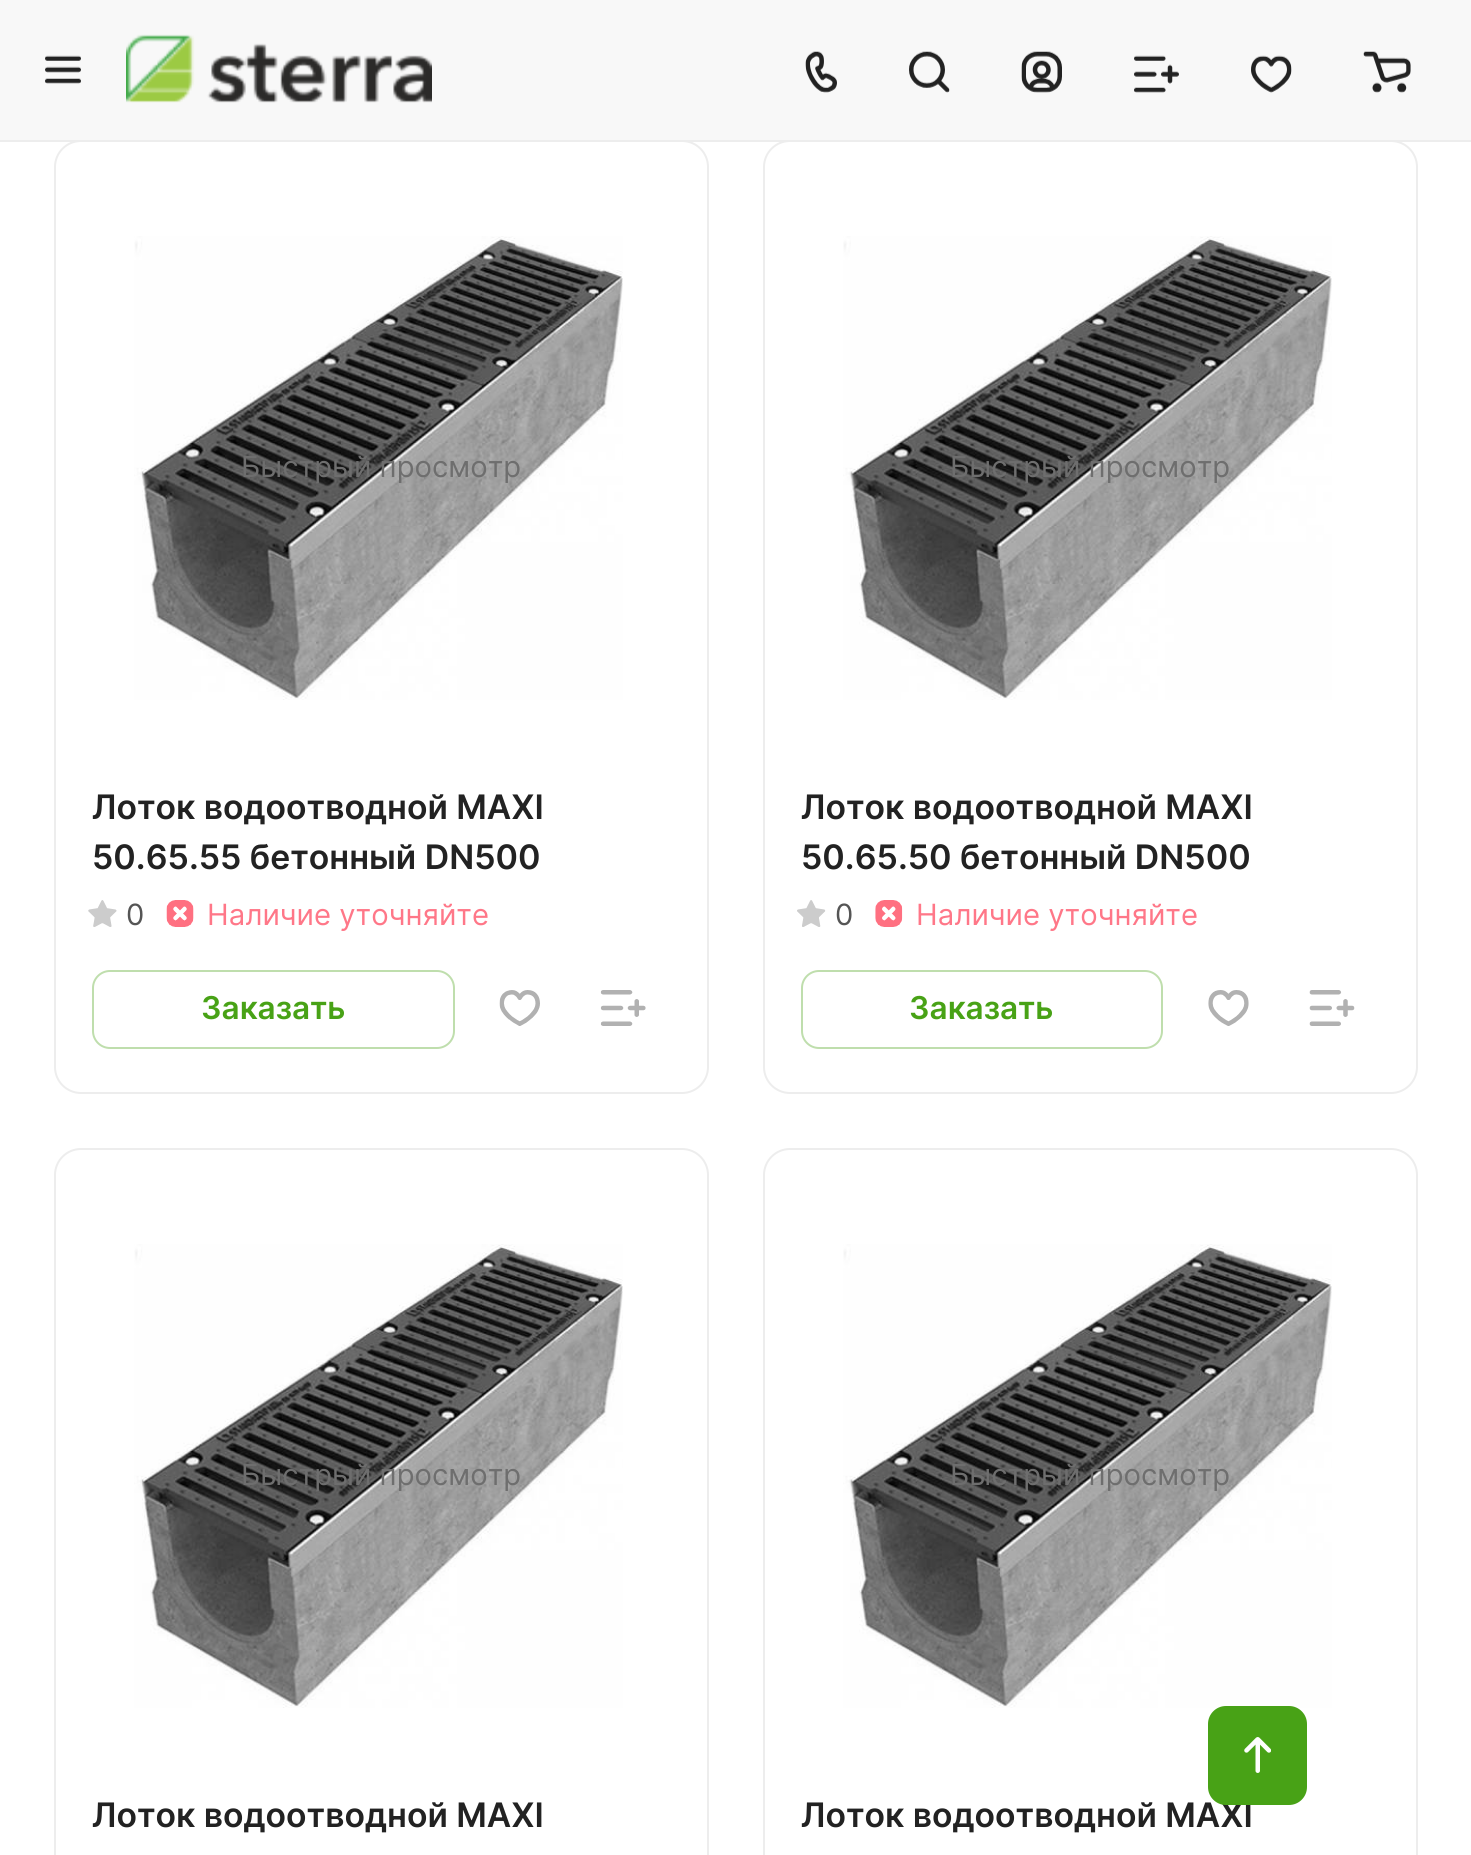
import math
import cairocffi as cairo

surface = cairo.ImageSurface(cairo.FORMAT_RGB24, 1471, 1855)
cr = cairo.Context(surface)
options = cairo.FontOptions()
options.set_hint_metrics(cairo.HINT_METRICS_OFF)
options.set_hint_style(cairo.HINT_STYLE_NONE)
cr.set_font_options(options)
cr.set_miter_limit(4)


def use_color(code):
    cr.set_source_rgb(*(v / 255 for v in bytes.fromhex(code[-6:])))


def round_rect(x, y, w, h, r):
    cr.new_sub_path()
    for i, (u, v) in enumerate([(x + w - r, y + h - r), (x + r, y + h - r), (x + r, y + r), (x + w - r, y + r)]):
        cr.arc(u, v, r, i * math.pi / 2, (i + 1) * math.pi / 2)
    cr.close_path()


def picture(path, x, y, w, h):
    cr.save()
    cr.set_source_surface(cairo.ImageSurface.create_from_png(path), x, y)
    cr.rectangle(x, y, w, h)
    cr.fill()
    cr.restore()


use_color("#ffffff")
cr.paint()
round_rect(55, 141, 653, 952, 26)
use_color("#ededed")
cr.stroke()
round_rect(764, 141, 653, 952, 26)
cr.stroke()
cr.new_path()
cr.move_to(0, 140)
cr.line_to(0, 142)
cr.line_to(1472, 142)
cr.line_to(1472, 2)
cr.line_to(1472, 140)
cr.close_path()
cr.fill()
use_color("#f8f8f8")
cr.rectangle(0, 0, 1471, 140)
cr.fill()
picture("img1.png", 45, 55, 36, 29)
picture("img2.png", 126, 34, 306, 69)
picture("img3.png", 805, 51, 32, 42)
picture("img4.png", 909, 51, 41, 42)
picture("img5.png", 1021, 51, 41, 42)
picture("img6.png", 1134, 55, 45, 38)
picture("img7.png", 1251, 55, 41, 38)
picture("img8.png", 1363, 51, 48, 42)
picture("img9.png", 134, 236, 489, 464)
cr.select_font_face("Inter")
cr.set_font_size(29.25)
use_color("#6e6e6e")
cr.move_to(241, 477)
cr.show_text("Быстрый просмотр")
cr.select_font_face("Inter SemiBold")
cr.set_font_size(33.75)
use_color("#222222")
cr.move_to(92, 819)
cr.show_text("Лоток водоотводной MAXI")
cr.move_to(92, 869)
cr.show_text("50.65.55 бетонный DN500")
picture("img10.png", 88, 900, 29, 27)
cr.select_font_face("Inter")
cr.set_font_size(29.25)
use_color("#555555")
cr.move_to(126, 925)
cr.show_text("0")
picture("img11.png", 166, 900, 28, 27)
use_color("#ff7788")
cr.move_to(207, 925)
cr.show_text("Наличие уточняйте")
round_rect(93, 971, 361, 77, 17)
use_color("#bfdead")
cr.stroke()
cr.select_font_face("Inter SemiBold")
cr.set_font_size(31.5)
use_color("#48a216")
cr.move_to(201, 1019)
cr.show_text("Заказать")
picture("img12.png", 499, 990, 41, 36)
picture("img13.png", 600, 990, 46, 36)
picture("img14.png", 843, 236, 489, 464)
cr.select_font_face("Inter")
cr.set_font_size(29.25)
use_color("#6e6e6e")
cr.move_to(950, 477)
cr.show_text("Быстрый просмотр")
cr.select_font_face("Inter SemiBold")
cr.set_font_size(33.75)
use_color("#222222")
cr.move_to(801, 819)
cr.show_text("Лоток водоотводной MAXI")
cr.move_to(801, 869)
cr.show_text("50.65.50 бетонный DN500")
picture("img15.png", 797, 900, 29, 27)
cr.select_font_face("Inter")
cr.set_font_size(29.25)
use_color("#555555")
cr.move_to(835, 925)
cr.show_text("0")
picture("img16.png", 875, 900, 28, 27)
use_color("#ff7788")
cr.move_to(916, 925)
cr.show_text("Наличие уточняйте")
round_rect(802, 971, 360, 77, 17)
use_color("#bfdead")
cr.stroke()
cr.select_font_face("Inter SemiBold")
cr.set_font_size(31.5)
use_color("#48a216")
cr.move_to(909, 1019)
cr.show_text("Заказать")
picture("img17.png", 1208, 990, 41, 36)
picture("img18.png", 1309, 990, 46, 36)
round_rect(55, 1149, 653, 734, 26)
use_color("#ededed")
cr.stroke()
picture("img9.png", 134, 1244, 489, 464)
cr.select_font_face("Inter")
cr.set_font_size(29.25)
use_color("#6e6e6e")
cr.move_to(241, 1485)
cr.show_text("Быстрый просмотр")
cr.select_font_face("Inter SemiBold")
cr.set_font_size(33.75)
use_color("#222222")
cr.move_to(92, 1827)
cr.show_text("Лоток водоотводной MAXI")
round_rect(764, 1149, 653, 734, 26)
use_color("#ededed")
cr.stroke()
picture("img14.png", 843, 1244, 489, 464)
cr.select_font_face("Inter")
cr.set_font_size(29.25)
use_color("#6e6e6e")
cr.move_to(950, 1485)
cr.show_text("Быстрый просмотр")
cr.select_font_face("Inter SemiBold")
cr.set_font_size(33.75)
use_color("#222222")
cr.move_to(801, 1827)
cr.show_text("Лоток водоотводной MAXI")
use_color("#48a216")
round_rect(1208, 1706, 99, 99, 18)
cr.fill()
picture("img19.png", 1244, 1737, 27, 36)
surface.write_to_png("result.png")
